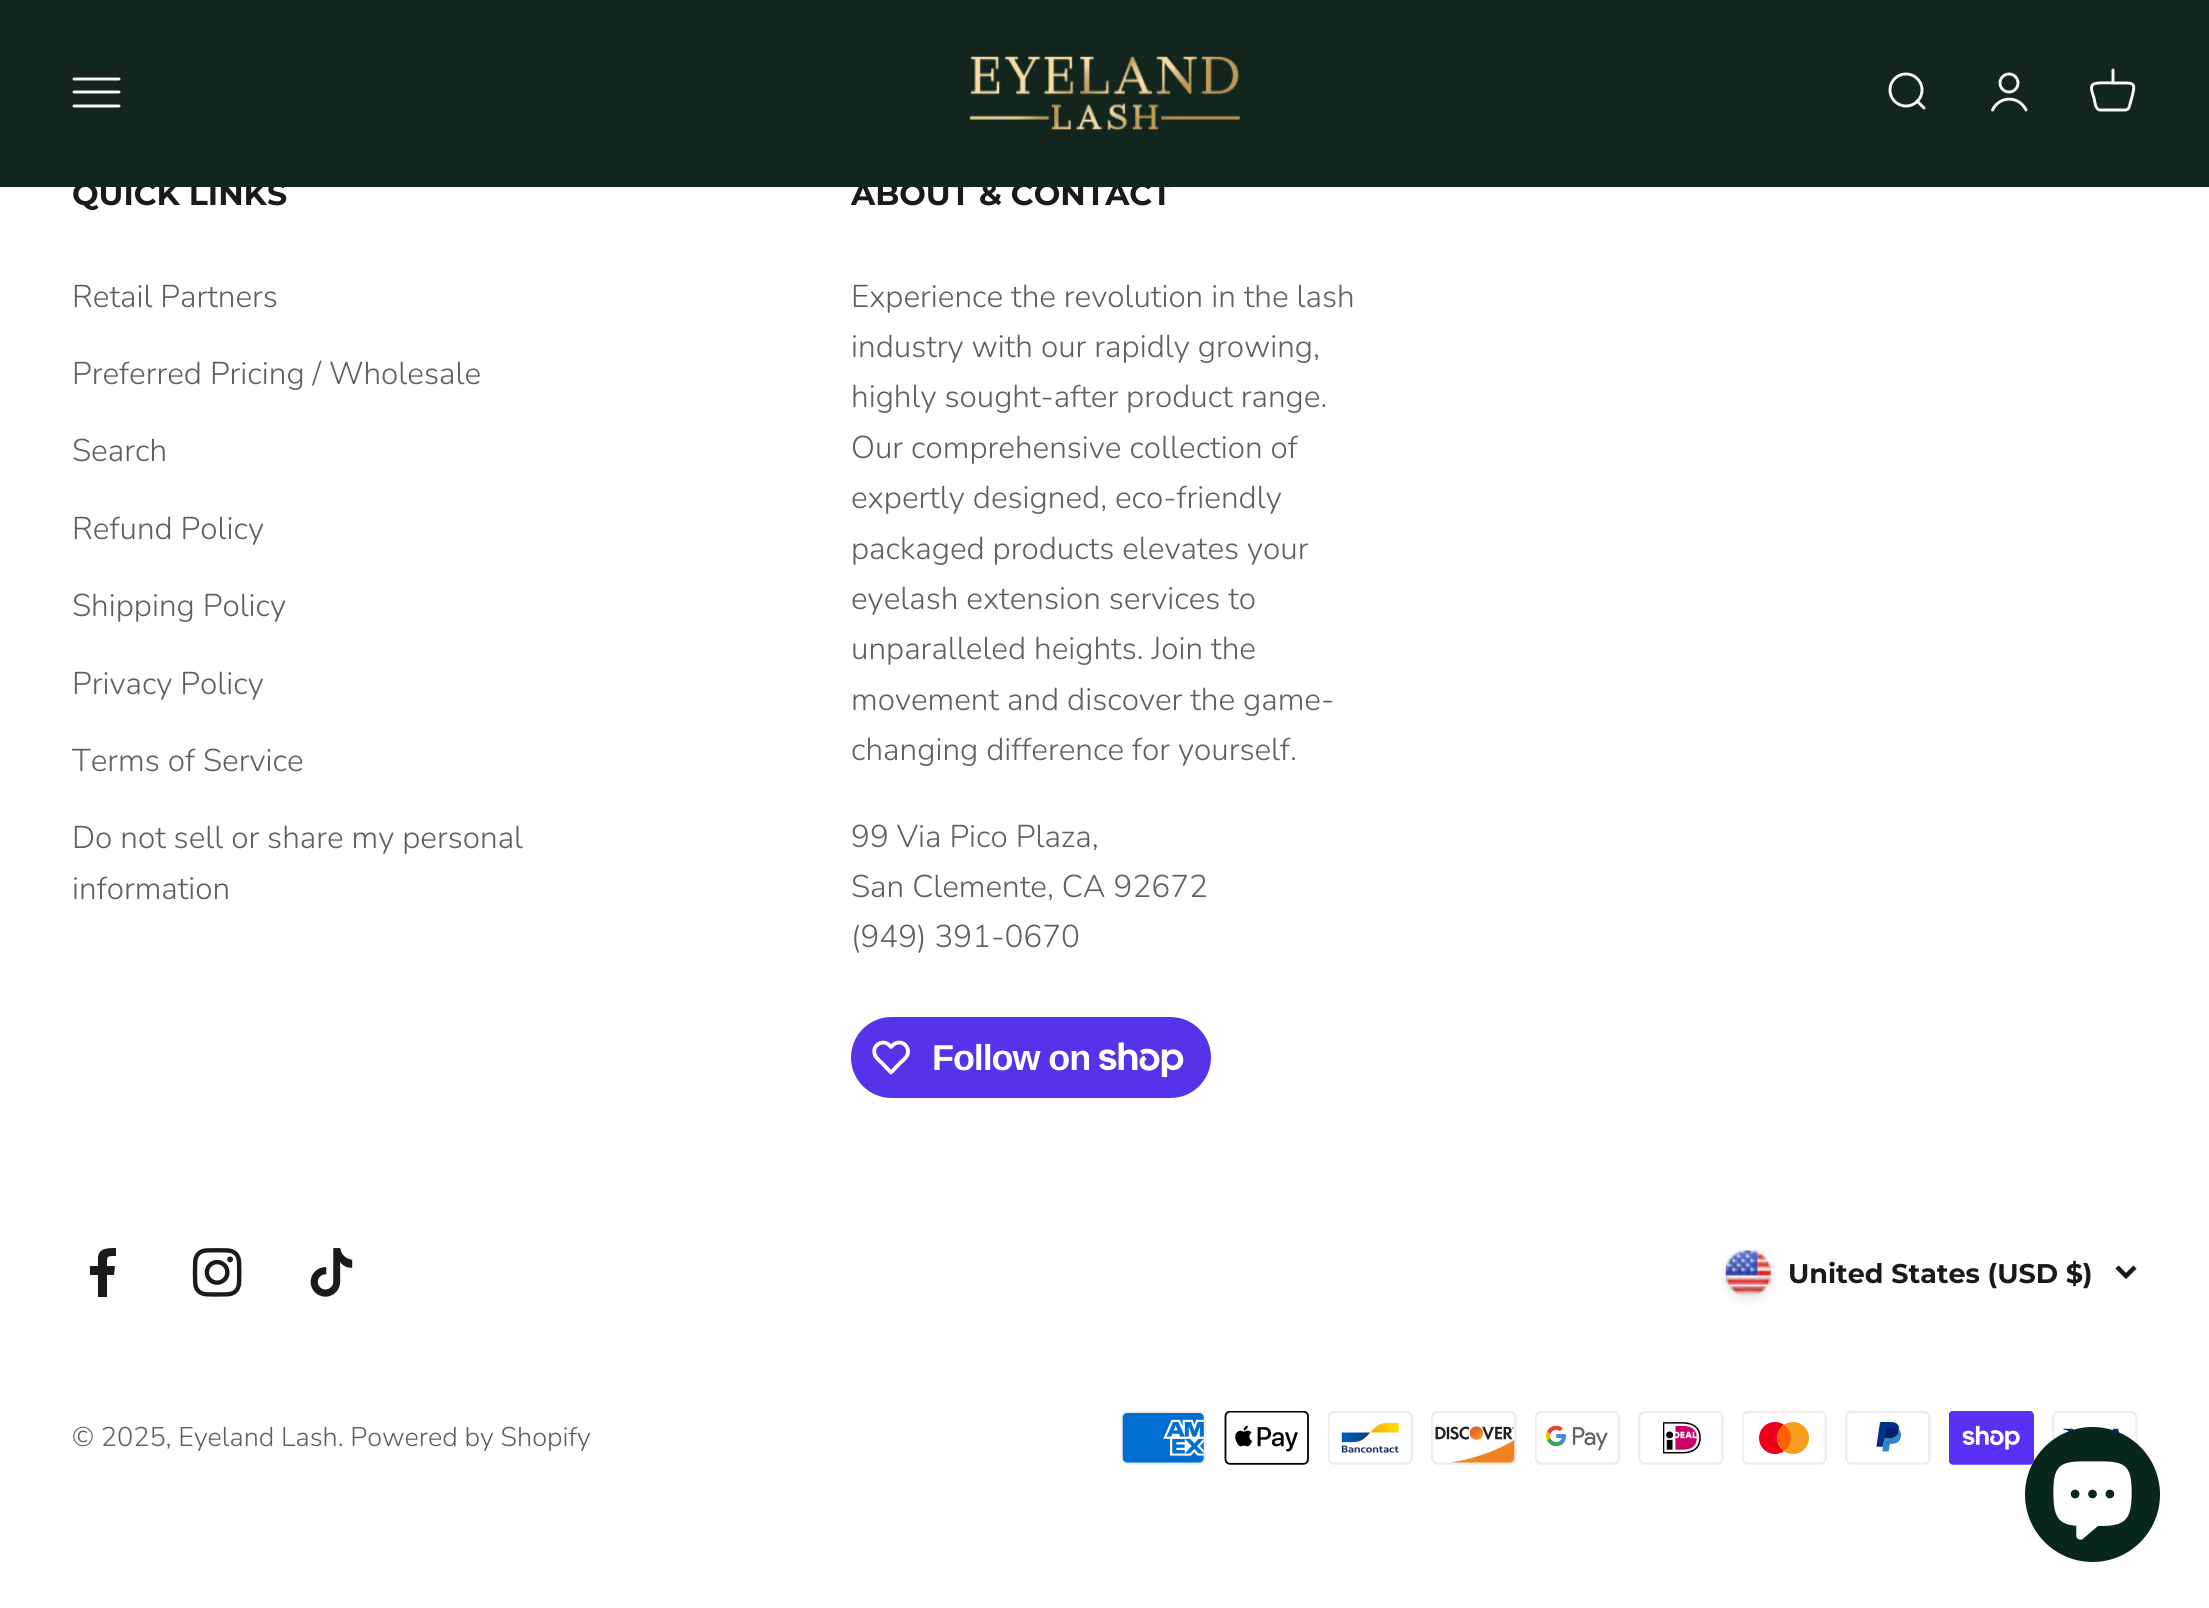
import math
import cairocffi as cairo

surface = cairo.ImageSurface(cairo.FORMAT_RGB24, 2209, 1608)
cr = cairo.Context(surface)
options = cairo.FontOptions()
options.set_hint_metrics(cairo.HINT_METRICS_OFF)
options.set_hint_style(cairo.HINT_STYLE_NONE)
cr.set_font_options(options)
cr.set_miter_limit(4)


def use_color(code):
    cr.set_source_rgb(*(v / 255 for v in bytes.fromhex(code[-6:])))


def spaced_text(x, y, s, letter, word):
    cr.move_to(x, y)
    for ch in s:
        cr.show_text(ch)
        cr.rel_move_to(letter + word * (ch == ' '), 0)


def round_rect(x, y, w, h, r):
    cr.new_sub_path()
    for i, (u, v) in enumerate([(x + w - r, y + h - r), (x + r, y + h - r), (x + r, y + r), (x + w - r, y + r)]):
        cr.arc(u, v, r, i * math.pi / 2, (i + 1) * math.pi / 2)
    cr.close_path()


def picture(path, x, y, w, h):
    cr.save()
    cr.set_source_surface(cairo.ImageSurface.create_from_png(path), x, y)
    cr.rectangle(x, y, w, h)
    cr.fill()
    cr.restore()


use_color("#ffffff")
cr.paint()
cr.select_font_face("Montserrat", cairo.FONT_SLANT_NORMAL, cairo.FONT_WEIGHT_BOLD)
cr.set_font_size(31.5)
use_color("#1a1a1a")
cr.move_to(72, 205)
cr.show_text("QUICK LINKS")
cr.move_to(851, 205)
cr.show_text("ABOUT & CONTACT")
use_color("#12261e")
cr.rectangle(0, 0, 2209, 187)
cr.fill()
cr.new_path()
cr.move_to(74, 79)
cr.line_to(119, 79)
cr.move_to(74, 92)
cr.line_to(119, 92)
cr.move_to(74, 106)
cr.line_to(119, 106)
use_color("#f9f9f9")
cr.set_line_width(2.9)
cr.set_line_cap(cairo.LINE_CAP_ROUND)
cr.stroke()
picture("img1.png", 969, 55, 271, 76)
cr.arc(1906, 90, 16, 0, 2 * math.pi)
cr.set_line_cap(cairo.LINE_CAP_BUTT)
cr.stroke()
cr.new_path()
cr.move_to(1917, 101)
cr.line_to(1924, 108)
cr.set_line_cap(cairo.LINE_CAP_ROUND)
cr.set_line_join(cairo.LINE_JOIN_ROUND)
cr.stroke()
cr.arc(2009, 83, 9, 0, 2 * math.pi)
cr.set_line_cap(cairo.LINE_CAP_BUTT)
cr.set_line_join(cairo.LINE_JOIN_MITER)
cr.stroke()
cr.new_path()
cr.move_to(1992.5, 110)
cr.curve_to(1999.5, 95.5, 2019, 95.5, 2026, 110)
cr.set_line_cap(cairo.LINE_CAP_ROUND)
cr.stroke()
cr.new_path()
cr.move_to(2113, 83)
cr.curve_to(2109, 83, 2096, 82, 2093, 84.5)
cr.curve_to(2089.5, 87.5, 2093, 94.5, 2094, 98)
cr.curve_to(2095, 101.5, 2095, 110, 2100.5, 110)
cr.line_to(2121, 110)
cr.curve_to(2127.5, 110, 2128.5, 110.5, 2130, 104)
cr.line_to(2132.5, 95)
cr.curve_to(2134, 87.5, 2136, 83, 2126.5, 83)
cr.close_path()
cr.move_to(2113, 83)
cr.line_to(2113, 70)
cr.set_line_join(cairo.LINE_JOIN_ROUND)
cr.stroke()
cr.select_font_face("Nunito Light")
use_color("#5f5f5f")
cr.move_to(72, 307)
cr.show_text("Retail Partners")
cr.move_to(72, 384)
cr.show_text("Preferred Pricing / Wholesale")
cr.move_to(72, 461)
cr.show_text("Search")
cr.move_to(72, 539)
cr.show_text("Refund Policy")
cr.move_to(72, 616)
cr.show_text("Shipping Policy")
cr.move_to(72, 694)
cr.show_text("Privacy Policy")
cr.move_to(72, 771)
cr.show_text("Terms of Service")
cr.move_to(72, 848)
cr.show_text("Do not sell or share my personal")
cr.move_to(72, 899)
cr.show_text("information")
cr.move_to(851, 307)
cr.show_text("Experience the revolution in the lash")
cr.move_to(851, 357)
cr.show_text("industry with our rapidly growing,")
cr.move_to(851, 407)
cr.show_text("highly sought-after product range.")
cr.move_to(851, 458)
cr.show_text("Our comprehensive collection of")
cr.move_to(851, 508)
cr.show_text("expertly designed, eco-friendly")
cr.move_to(851, 559)
cr.show_text("packaged products elevates your")
cr.move_to(851, 609)
cr.show_text("eyelash extension services to")
cr.move_to(851, 659)
cr.show_text("unparalleled heights. Join the")
cr.move_to(851, 710)
cr.show_text("movement and discover the game-")
cr.move_to(851, 760)
cr.show_text("changing difference for yourself.")
cr.move_to(851, 847)
cr.show_text("99 Via Pico Plaza,")
cr.move_to(851, 897)
cr.show_text("San Clemente, CA 92672")
cr.move_to(851, 947)
cr.show_text("(949) 391-0670")
use_color("#5433eb")
round_rect(851, 1017, 360, 81, 40.5)
cr.fill()
cr.new_path()
cr.move_to(889, 1045)
cr.line_to(891, 1047)
cr.curve_to(892.5, 1045.5, 894, 1043.5, 896.5, 1043)
cr.curve_to(903.5, 1040.5, 910, 1048, 907.5, 1054.5)
cr.curve_to(906, 1058, 903, 1060.5, 900.5, 1062.5)
cr.line_to(891, 1072.5)
cr.line_to(881.5, 1062.5)
cr.curve_to(879, 1060.5, 876, 1058, 875, 1055)
cr.curve_to(871, 1046, 882.5, 1038.5, 889, 1045)
cr.close_path()
use_color("#ffffff")
cr.set_line_width(3.8)
cr.set_line_cap(cairo.LINE_CAP_BUTT)
cr.stroke()
cr.select_font_face("Liberation Sans", cairo.FONT_SLANT_NORMAL, cairo.FONT_WEIGHT_BOLD)
cr.set_font_size(36)
spaced_text(932, 1070, "Follow on", -1.1, 0)
picture("img2.png", 1099, 1042, 85, 36)
use_color("#1a1a1a")
cr.set_fill_rule(cairo.FILL_RULE_EVEN_ODD)
cr.new_path()
cr.move_to(98, 1297)
cr.line_to(98, 1275)
cr.line_to(90, 1275)
cr.line_to(90, 1266)
cr.line_to(98, 1266)
cr.line_to(98, 1257)
cr.curve_to(99, 1248, 108, 1248, 116, 1248)
cr.line_to(116, 1256)
cr.curve_to(106, 1256, 107, 1256, 107, 1266)
cr.line_to(115, 1266)
cr.line_to(114, 1275)
cr.line_to(107, 1275)
cr.line_to(107, 1297)
cr.close_path()
cr.fill()
picture("img3.png", 192, 1248, 50, 49)
picture("img4.png", 310, 1248, 43, 49)
picture("img5.png", 1721, 1250, 54, 55)
cr.select_font_face("Montserrat", cairo.FONT_SLANT_NORMAL, cairo.FONT_WEIGHT_BOLD)
cr.set_font_size(27)
cr.move_to(1788, 1283)
cr.show_text("United States (USD $)")
cr.new_path()
cr.move_to(2117, 1267)
cr.line_to(2126, 1276)
cr.line_to(2135, 1267)
cr.set_line_width(4.5)
cr.set_line_join(cairo.LINE_JOIN_MITER)
cr.stroke()
cr.select_font_face("Nunito Light")
use_color("#5f5f5f")
cr.move_to(72, 1446)
cr.show_text("© 2025, Eyeland Lash. Powered by Shopify")
picture("img6.png", 1121, 1411, 85, 54)
picture("img7.png", 1224, 1411, 85, 54)
picture("img8.png", 1328, 1411, 85, 54)
picture("img9.png", 1431, 1411, 86, 54)
picture("img10.png", 1535, 1411, 85, 54)
picture("img11.png", 1638, 1411, 86, 54)
picture("img12.png", 1742, 1411, 85, 54)
picture("img13.png", 1845, 1411, 86, 54)
picture("img14.png", 1949, 1411, 85, 54)
picture("img15.png", 2052, 1411, 86, 34)
use_color("#0a271d")
cr.arc(2092.5, 1494.5, 67.5, 0, 2 * math.pi)
cr.fill()
picture("img16.png", 2053, 1461, 79, 79)
surface.write_to_png("result.png")
